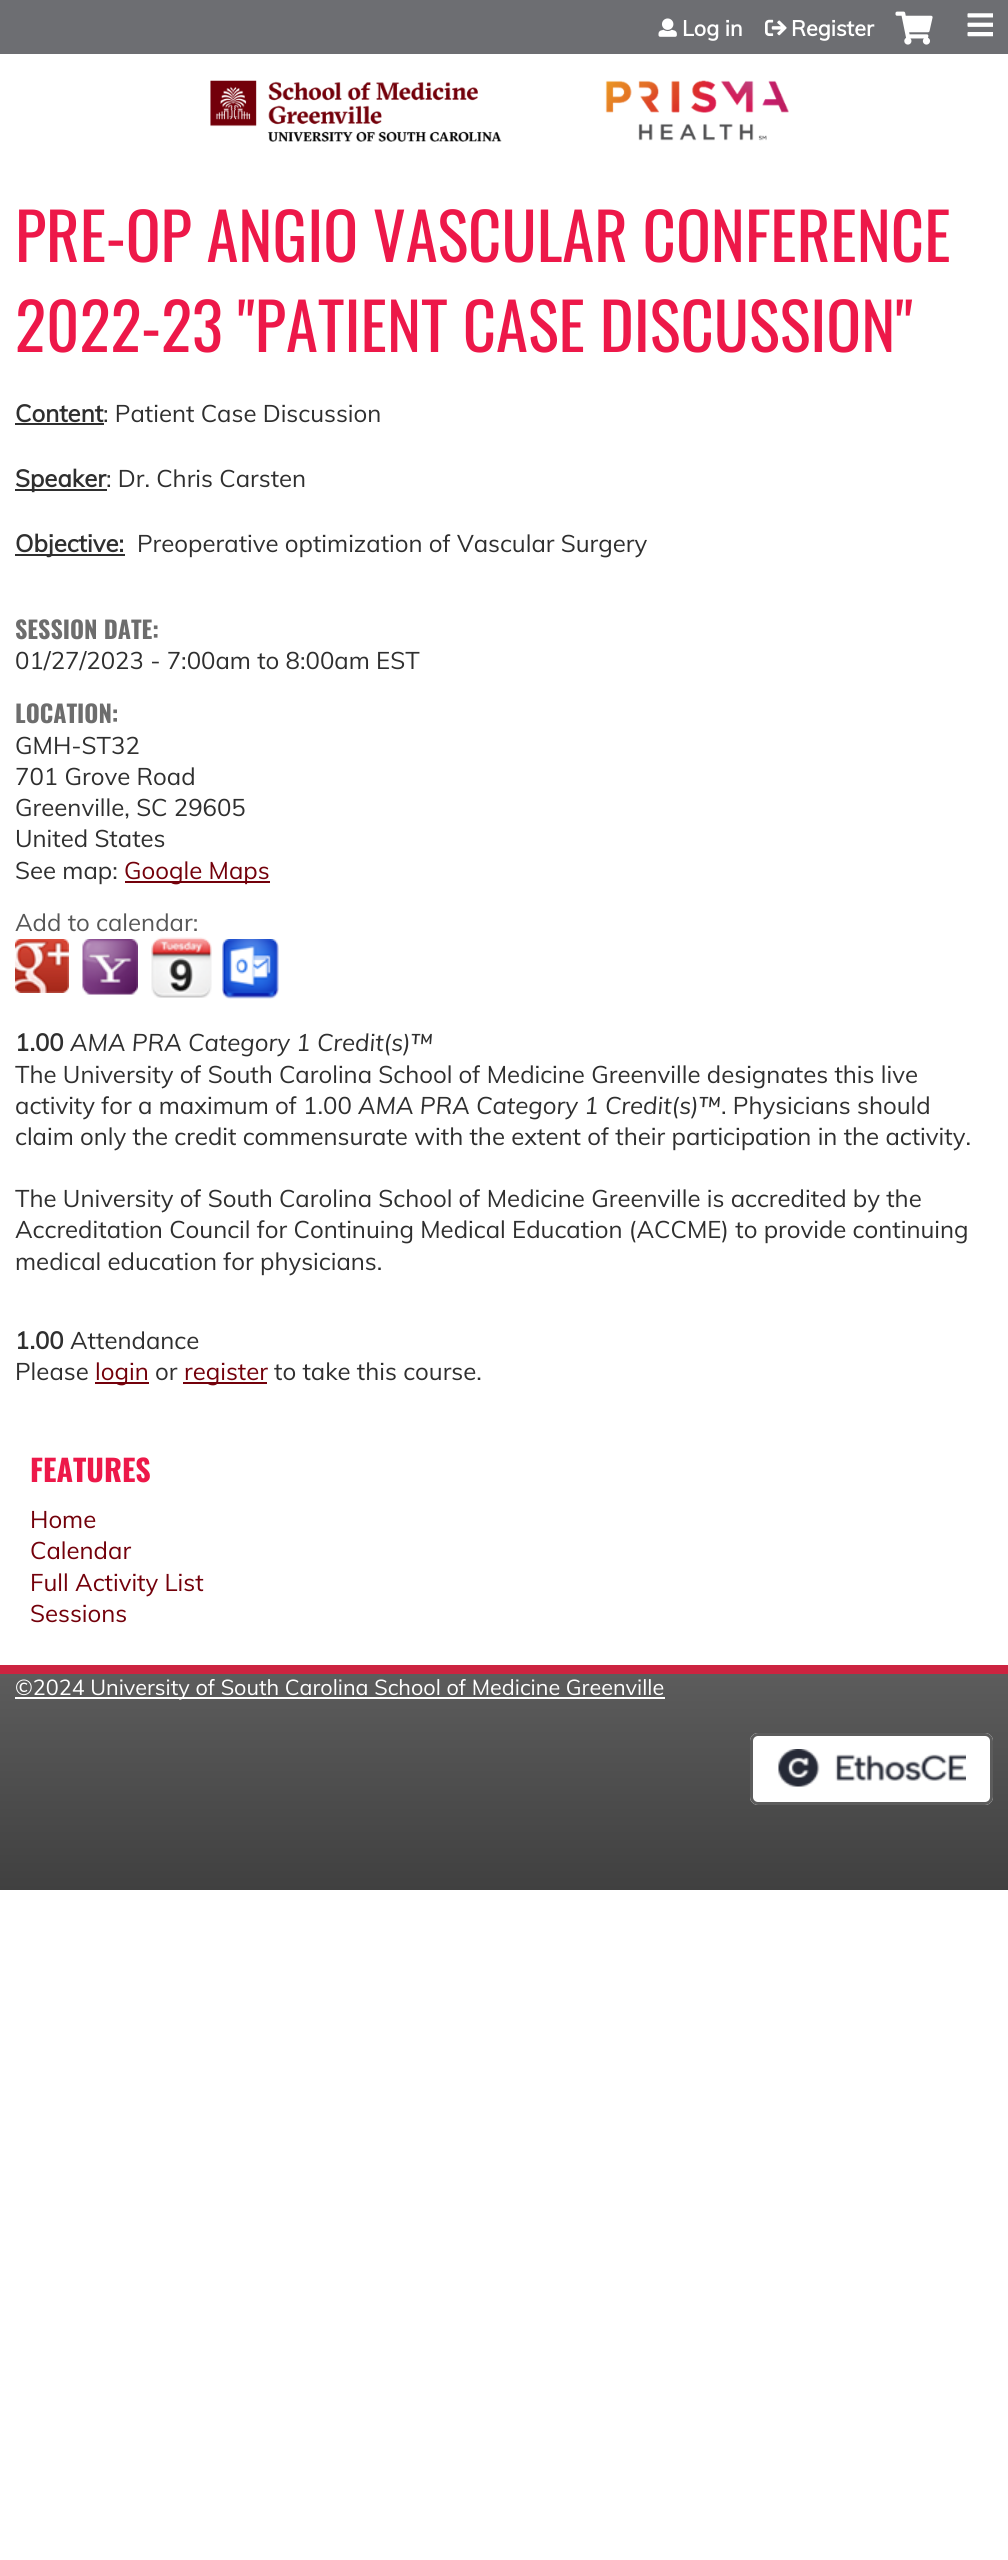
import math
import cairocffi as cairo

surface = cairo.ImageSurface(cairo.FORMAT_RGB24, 1008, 2560)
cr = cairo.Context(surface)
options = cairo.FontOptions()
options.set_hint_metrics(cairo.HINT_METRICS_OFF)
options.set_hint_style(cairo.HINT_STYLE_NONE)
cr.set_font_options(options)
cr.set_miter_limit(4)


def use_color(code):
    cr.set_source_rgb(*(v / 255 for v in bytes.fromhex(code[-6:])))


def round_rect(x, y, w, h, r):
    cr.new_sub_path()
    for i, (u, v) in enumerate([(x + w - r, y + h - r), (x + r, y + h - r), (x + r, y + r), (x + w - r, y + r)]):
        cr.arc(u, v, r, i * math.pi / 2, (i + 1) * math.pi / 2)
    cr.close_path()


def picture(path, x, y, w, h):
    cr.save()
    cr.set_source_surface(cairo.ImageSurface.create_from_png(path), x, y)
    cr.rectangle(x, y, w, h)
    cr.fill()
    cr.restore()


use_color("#ffffff")
cr.paint()
use_color("#6d6e72")
cr.rectangle(0, 0, 1008, 54)
cr.fill()
picture("img1.png", 658, 18, 19, 19)
cr.select_font_face("Muli", cairo.FONT_SLANT_NORMAL, cairo.FONT_WEIGHT_BOLD)
cr.set_font_size(21.6)
use_color("#ffffff")
cr.move_to(682, 36)
cr.show_text("Log in")
picture("img2.png", 765, 19, 22, 17)
cr.move_to(791, 36)
cr.show_text("Register")
picture("img3.png", 895, 11, 38, 34)
picture("img4.png", 967, 13, 26, 24)
picture("img5.png", 210, 80, 579, 62)
cr.select_font_face("Oswald")
cr.set_font_size(64.75)
use_color("#ed1849")
cr.move_to(15, 262)
cr.show_text("PRE-OP ANGIO VASCULAR CONFERENCE")
cr.move_to(15, 352)
cr.show_text("2022-23 \"PATIENT CASE DISCUSSION\"")
cr.select_font_face("Muli", cairo.FONT_SLANT_NORMAL, cairo.FONT_WEIGHT_BOLD)
cr.set_font_size(24)
use_color("#2f2f2f")
cr.move_to(15, 422)
cr.show_text("Content")
cr.rectangle(15, 423, 89, 2)
cr.fill()
cr.select_font_face("Muli")
cr.move_to(103, 422)
cr.show_text(": Patient Case Discussion")
cr.rectangle(15, 489, 92, 2)
cr.fill()
cr.select_font_face("Muli", cairo.FONT_SLANT_NORMAL, cairo.FONT_WEIGHT_BOLD)
cr.move_to(15, 487)
cr.show_text("Speaker")
cr.select_font_face("Muli")
cr.move_to(106, 487)
cr.show_text(": Dr. Chris Carsten")
cr.rectangle(15, 554, 110, 2)
cr.fill()
cr.select_font_face("Muli", cairo.FONT_SLANT_NORMAL, cairo.FONT_WEIGHT_BOLD)
cr.move_to(15, 552)
cr.show_text("Objective:")
cr.select_font_face("Muli")
cr.move_to(137, 552)
cr.show_text("Preoperative optimization of Vascular Surgery")
cr.select_font_face("Oswald", cairo.FONT_SLANT_NORMAL, cairo.FONT_WEIGHT_BOLD)
use_color("#6d6d6d")
cr.move_to(15, 639)
cr.show_text("SESSION DATE:")
cr.select_font_face("Muli")
use_color("#2f2f2f")
cr.move_to(15, 669)
cr.show_text("01/27/2023 - 7:00am to 8:00am EST")
cr.select_font_face("Oswald", cairo.FONT_SLANT_NORMAL, cairo.FONT_WEIGHT_BOLD)
use_color("#6d6d6d")
cr.move_to(15, 723)
cr.show_text("LOCATION:")
cr.select_font_face("Muli")
use_color("#2f2f2f")
cr.move_to(15, 754)
cr.show_text("GMH-ST32")
cr.move_to(15, 785)
cr.show_text("701 Grove Road")
cr.move_to(15, 816)
cr.show_text("Greenville, SC 29605")
cr.move_to(15, 847)
cr.show_text("United States")
cr.move_to(15, 879)
cr.show_text("See map:")
use_color("#73000a")
cr.rectangle(125, 881, 145, 2)
cr.fill()
cr.move_to(124, 879)
cr.show_text("Google Maps")
use_color("#575757")
cr.move_to(15, 931)
cr.show_text("Add to calendar:")
picture("img6.png", 15, 939, 54, 54)
picture("img7.png", 82, 939, 56, 56)
picture("img8.png", 151, 937, 61, 61)
picture("img9.png", 222, 939, 57, 60)
cr.select_font_face("Muli", cairo.FONT_SLANT_NORMAL, cairo.FONT_WEIGHT_BOLD)
use_color("#2f2f2f")
cr.move_to(15, 1051)
cr.show_text("1.00")
cr.select_font_face("Muli", cairo.FONT_SLANT_ITALIC)
cr.move_to(70, 1051)
cr.show_text("AMA PRA Category 1 Credit(s)™")
cr.select_font_face("Muli")
cr.move_to(15, 1083)
cr.show_text("The University of South Carolina School of Medicine Greenville designates this live")
cr.move_to(15, 1114)
cr.show_text("activity for a maximum of 1.00")
cr.select_font_face("Muli", cairo.FONT_SLANT_ITALIC)
cr.move_to(358, 1114)
cr.show_text("AMA PRA Category 1 Credit(s)™")
cr.select_font_face("Muli")
cr.move_to(721, 1114)
cr.show_text(". Physicians should")
cr.move_to(15, 1145)
cr.show_text("claim only the credit commensurate with the extent of their participation in the activity.")
cr.move_to(15, 1207)
cr.show_text("The University of South Carolina School of Medicine Greenville is accredited by the")
cr.move_to(15, 1238)
cr.show_text("Accreditation Council for Continuing Medical Education (ACCME) to provide continuing")
cr.move_to(15, 1270)
cr.show_text("medical education for physicians.")
cr.select_font_face("Muli", cairo.FONT_SLANT_NORMAL, cairo.FONT_WEIGHT_BOLD)
cr.move_to(15, 1349)
cr.show_text("1.00")
cr.select_font_face("Muli")
cr.move_to(70, 1349)
cr.show_text("Attendance")
cr.move_to(15, 1380)
cr.show_text("Please")
use_color("#73000a")
cr.rectangle(95, 1382, 54, 2)
cr.fill()
cr.move_to(95, 1380)
cr.show_text("login")
use_color("#2f2f2f")
cr.move_to(155, 1380)
cr.show_text("or")
use_color("#73000a")
cr.rectangle(183, 1382, 84, 2)
cr.fill()
cr.move_to(184, 1380)
cr.show_text("register")
use_color("#2f2f2f")
cr.move_to(274, 1380)
cr.show_text("to take this course.")
cr.select_font_face("Oswald", cairo.FONT_SLANT_NORMAL, cairo.FONT_WEIGHT_BOLD)
cr.set_font_size(30)
use_color("#ed1849")
cr.move_to(30, 1482)
cr.show_text("FEATURES")
cr.select_font_face("Muli")
cr.set_font_size(24)
use_color("#73000a")
cr.move_to(30, 1528)
cr.show_text("Home")
cr.move_to(30, 1559)
cr.show_text("Calendar")
cr.move_to(30, 1591)
cr.show_text("Full Activity List")
cr.move_to(30, 1622)
cr.show_text("Sessions")
gradient = cairo.LinearGradient(504, 1890, 504, 1674)
gradient.add_color_stop_rgba(0, 0.251, 0.251, 0.251, 1)
gradient.add_color_stop_rgba(1, 0.361, 0.361, 0.361, 1)
cr.set_source(gradient)
cr.rectangle(0, 1674, 1008, 216)
cr.fill()
use_color("#cc2340")
cr.rectangle(0, 1665, 1008, 9)
cr.fill()
use_color("#ffffff")
cr.rectangle(15, 1697, 650, 2)
cr.fill()
cr.set_font_size(21.6)
cr.move_to(15, 1695)
cr.show_text("©2024 University of South Carolina School of Medicine Greenville")
round_rect(750, 1733, 243, 72, 8)
cr.fill()
picture("img10.png", 778, 1749, 188, 38)
round_rect(751.5, 1734.5, 240, 69, 6.5)
use_color("#5c5c5c")
cr.set_line_width(3)
cr.stroke()
surface.write_to_png("result.png")
